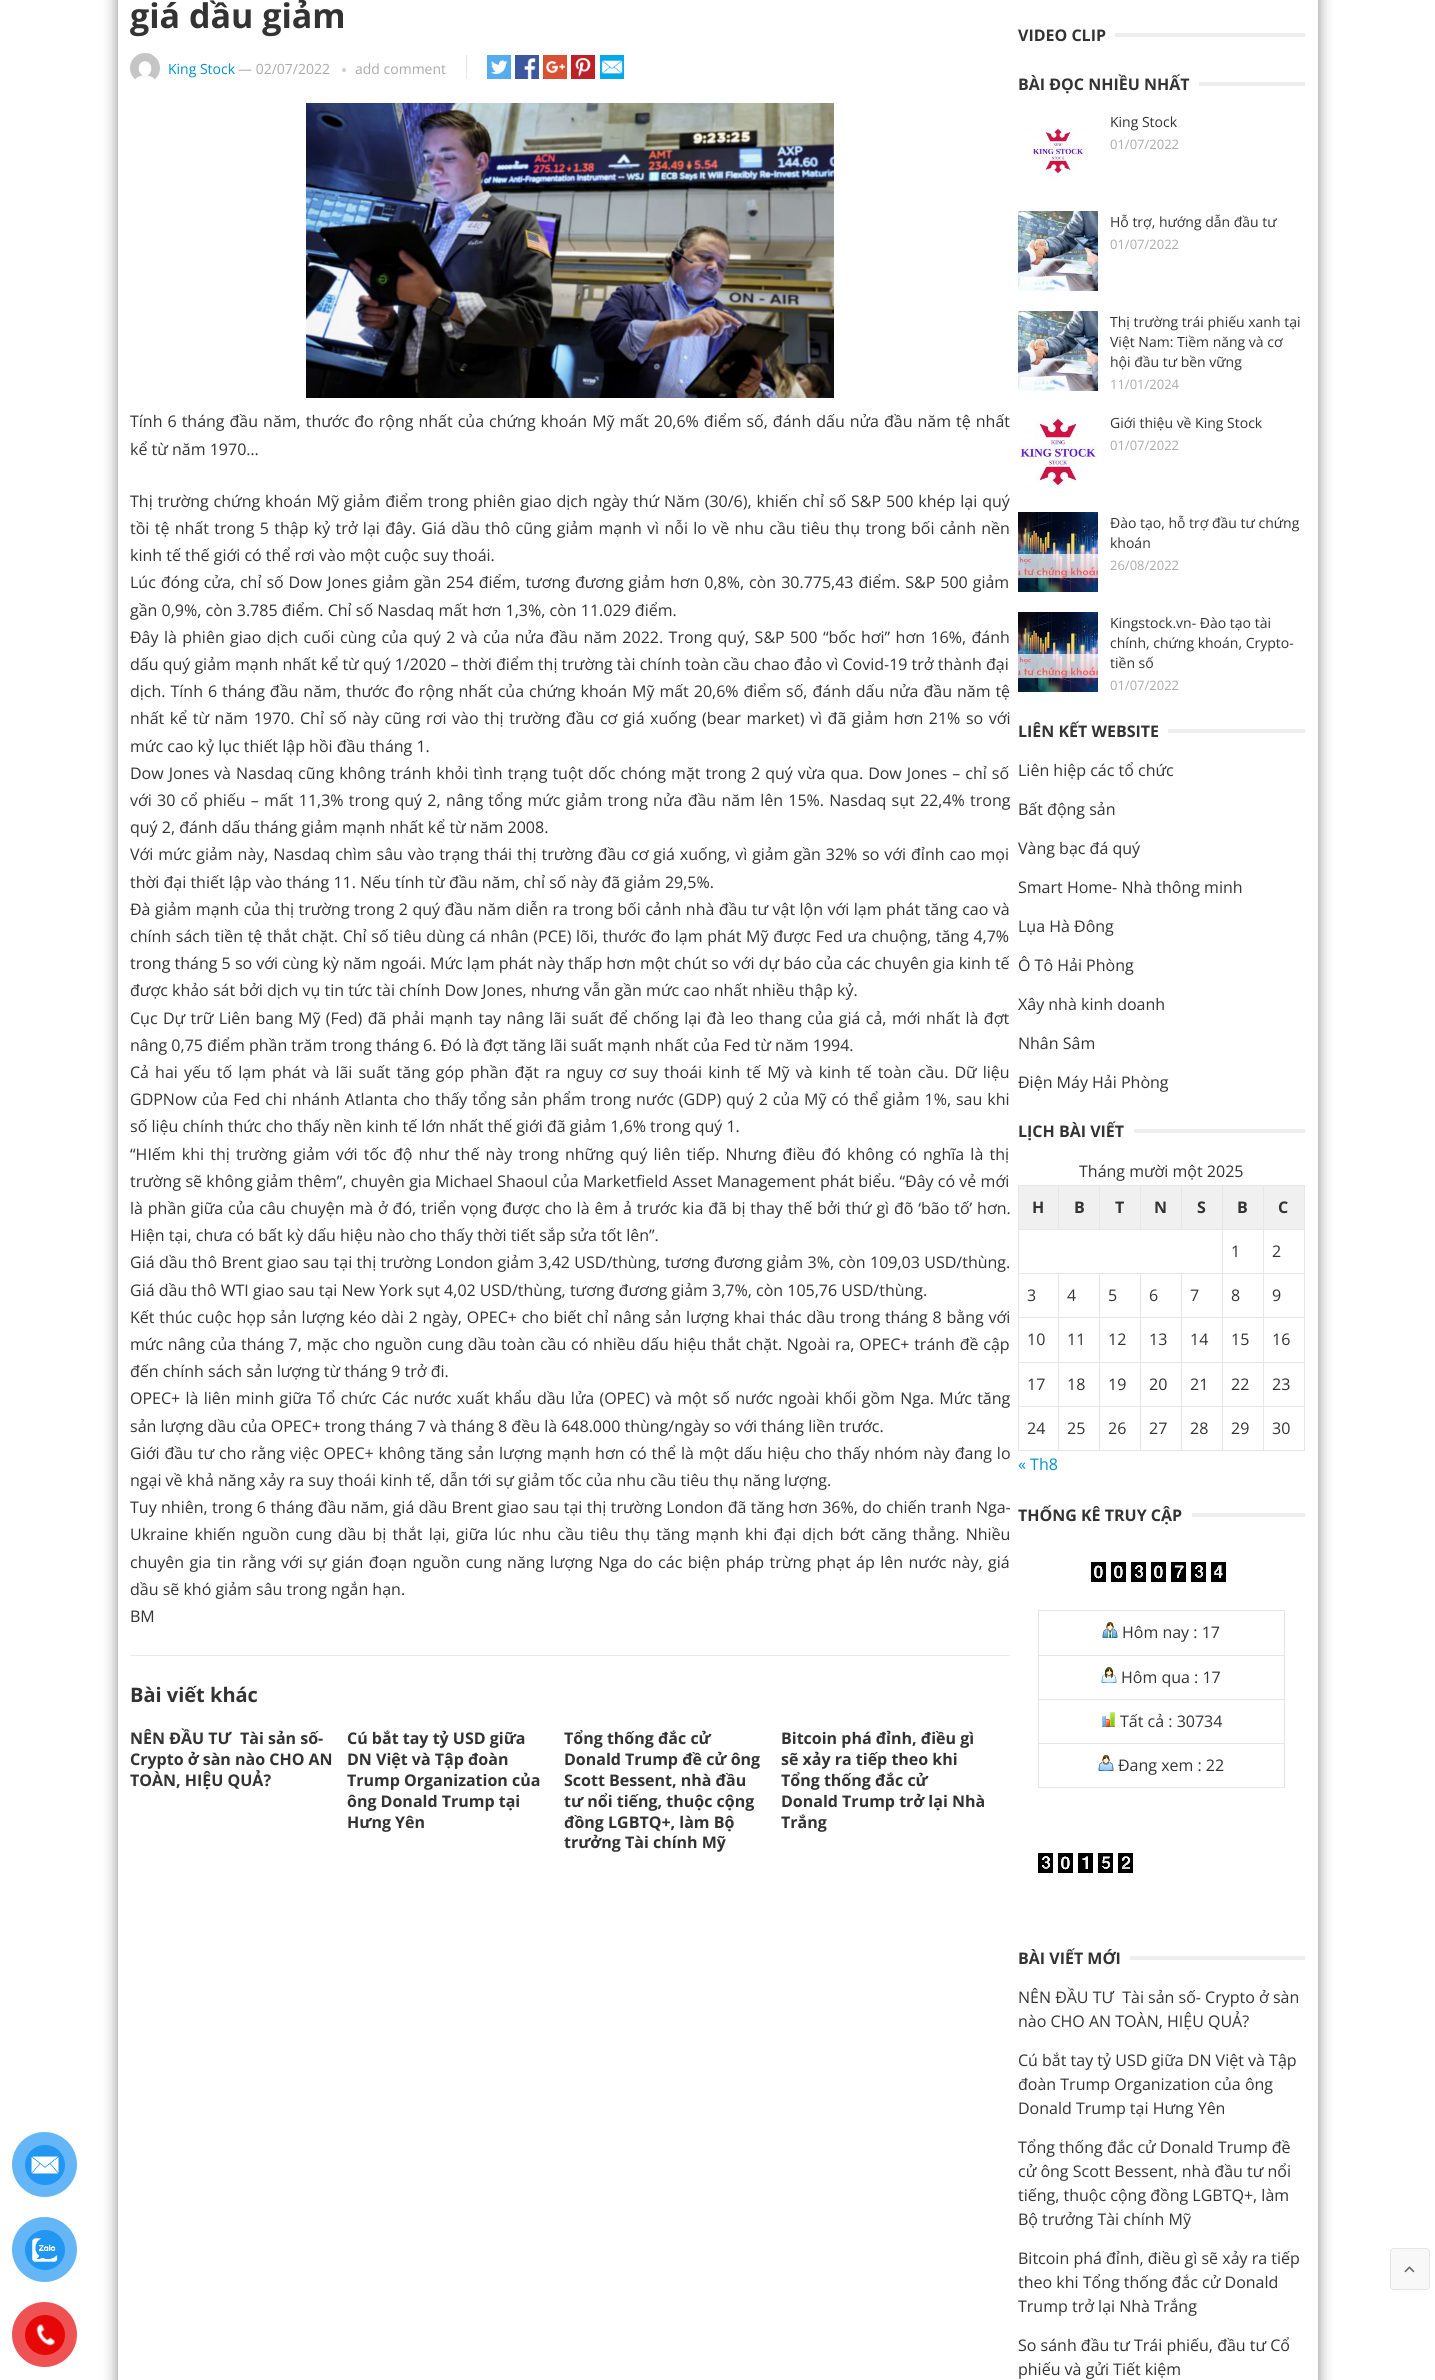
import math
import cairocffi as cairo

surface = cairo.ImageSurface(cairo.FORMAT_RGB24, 1435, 2380)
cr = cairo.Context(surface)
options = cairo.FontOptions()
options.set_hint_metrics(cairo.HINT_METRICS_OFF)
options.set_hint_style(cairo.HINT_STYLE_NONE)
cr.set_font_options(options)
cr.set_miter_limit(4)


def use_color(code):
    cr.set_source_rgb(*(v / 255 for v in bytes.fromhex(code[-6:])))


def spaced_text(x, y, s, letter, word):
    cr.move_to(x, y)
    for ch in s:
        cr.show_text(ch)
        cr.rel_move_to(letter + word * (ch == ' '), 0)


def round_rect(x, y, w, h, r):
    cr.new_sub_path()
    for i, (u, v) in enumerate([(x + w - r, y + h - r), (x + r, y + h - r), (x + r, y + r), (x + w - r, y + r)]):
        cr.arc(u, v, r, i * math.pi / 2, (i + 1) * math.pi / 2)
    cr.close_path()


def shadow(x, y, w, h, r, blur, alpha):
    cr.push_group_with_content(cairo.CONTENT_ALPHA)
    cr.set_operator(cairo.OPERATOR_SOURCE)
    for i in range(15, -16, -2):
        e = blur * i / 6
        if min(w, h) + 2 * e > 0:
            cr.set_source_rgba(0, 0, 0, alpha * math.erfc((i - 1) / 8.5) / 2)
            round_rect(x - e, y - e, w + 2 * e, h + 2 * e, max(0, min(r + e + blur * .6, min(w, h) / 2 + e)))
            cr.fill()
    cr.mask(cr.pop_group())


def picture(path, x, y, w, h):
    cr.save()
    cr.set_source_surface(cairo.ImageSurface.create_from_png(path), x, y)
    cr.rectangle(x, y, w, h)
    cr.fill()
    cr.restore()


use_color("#ffffff")
cr.paint()
use_color("#64b6f7")
cr.arc(44.5, 2164.5, 32.5, 0, 2 * math.pi)
cr.fill()
use_color("#2196f3")
cr.arc(45, 2165, 20, 0, 2 * math.pi)
cr.fill()
picture("img1.png", 31, 2156, 28, 18)
use_color("#64b6f7")
cr.arc(44.5, 2249.5, 32.5, 0, 2 * math.pi)
cr.fill()
use_color("#2196f3")
cr.arc(45, 2250, 20, 0, 2 * math.pi)
cr.fill()
picture("img2.png", 32, 2238, 26, 24)
use_color("#ee5252")
cr.arc(44.5, 2334.5, 32.5, 0, 2 * math.pi)
cr.fill()
use_color("#e60808")
cr.arc(45, 2335, 20, 0, 2 * math.pi)
cr.fill()
picture("img3.png", 36, 2324, 19, 22)
cr.save()
cr.set_fill_rule(cairo.FILL_RULE_EVEN_ODD)
cr.new_path()
cr.move_to(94, 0)
cr.line_to(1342, 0)
cr.line_to(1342, 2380)
cr.line_to(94, 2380)
cr.close_path()
cr.move_to(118, -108)
cr.line_to(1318, -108)
cr.line_to(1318, 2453)
cr.line_to(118, 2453)
cr.close_path()
cr.clip()
use_color("#888888")
shadow(118, -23, 1200, 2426, 0, 7.5, 1)
cr.restore()
cr.select_font_face("Open Sans", cairo.FONT_SLANT_NORMAL, cairo.FONT_WEIGHT_BOLD)
cr.set_font_size(34)
use_color("#333333")
cr.move_to(130, 28)
cr.show_text("giá dầu giảm")
picture("img4.png", 130, 53, 30, 27)
cr.select_font_face("Open Sans")
cr.set_font_size(14)
use_color("#0091cd")
cr.move_to(168, 74)
cr.show_text("King Stock")
use_color("#aaaaaa")
cr.move_to(238, 74)
cr.show_text("— 02/07/2022")
use_color("#cccccc")
cr.new_path()
cr.arc(344, 70, 2, 0, 2 * math.pi)
cr.fill()
use_color("#aaaaaa")
cr.move_to(355, 74)
cr.show_text("add comment")
use_color("#e6e6e6")
cr.rectangle(466, 55, 1, 24)
cr.fill()
picture("img5.png", 487, 55, 24, 24)
picture("img6.png", 515, 55, 24, 24)
picture("img7.png", 543, 55, 24, 24)
picture("img8.png", 571, 55, 24, 24)
picture("img9.png", 600, 55, 24, 24)
picture("img10.png", 306, 103, 528, 295)
cr.set_font_size(16)
use_color("#333333")
spaced_text(130, 427, "Tính 6 tháng đầu năm, thước đo rộng nhất của chứng khoán Mỹ mất 20,6% điểm số, đánh dấu nửa đầu năm tệ nhất", 0, 0.85)
cr.move_to(130, 455)
cr.show_text("kể từ năm 1970…")
spaced_text(130, 507, "Thị trường chứng khoán Mỹ giảm điểm trong phiên giao dịch ngày thứ Năm (30/6), khiến chỉ số S&P 500 khép lại quý", 0, 0.75)
spaced_text(130, 534, "tồi tệ nhất trong 5 thập kỷ trở lại đây. Giá dầu thô cũng giảm mạnh vì nỗi lo về nhu cầu tiêu thụ trong bối cảnh nền", 0, 1.15)
cr.move_to(130, 561)
cr.show_text("kinh tế thế giới có thể rơi vào một cuộc suy thoái.")
spaced_text(130, 588, "Lúc đóng cửa, chỉ số Dow Jones giảm gần 254 điểm, tương đương giảm hơn 0,8%, còn 30.775,43 điểm. S&P 500 giảm", 0, 0.8)
cr.move_to(130, 616)
cr.show_text("gần 0,9%, còn 3.785 điểm. Chỉ số Nasdaq mất hơn 1,3%, còn 11.029 điểm.")
spaced_text(130, 643, "Đây là phiên giao dịch cuối cùng của quý 2 và của nửa đầu năm 2022. Trong quý, S&P 500 “bốc hơi” hơn 16%, đánh", 0, 1.25)
cr.move_to(130, 670)
cr.show_text("dấu quý giảm mạnh nhất kể từ quý 1/2020 – thời điểm thị trường tài chính toàn cầu chao đảo vì Covid-19 trở thành đại")
spaced_text(130, 697, "dịch. Tính 6 tháng đầu năm, thước đo rộng nhất của chứng khoán Mỹ mất 20,6% điểm số, đánh dấu nửa đầu năm tệ", 0, 0.8)
spaced_text(130, 724, "nhất kể từ năm 1970. Chỉ số này cũng rơi vào thị trường đầu cơ giá xuống (bear market) vì đã giảm hơn 21% so với", 0, 1.4)
cr.move_to(130, 752)
cr.show_text("mức cao kỷ lục thiết lập hồi đầu tháng 1.")
spaced_text(130, 779, "Dow Jones và Nasdaq cũng không tránh khỏi tình trạng tuột dốc chóng mặt trong 2 quý vừa qua. Dow Jones – chỉ số", 0, 0.9)
spaced_text(130, 806, "với 30 cổ phiếu – mất 11,3% trong quý 2, nâng tổng mức giảm trong nửa đầu năm lên 15%. Nasdaq sụt 22,4% trong", 0, 1.1)
cr.move_to(130, 833)
cr.show_text("quý 2, đánh dấu tháng giảm mạnh nhất kể từ năm 2008.")
spaced_text(130, 860, "Với mức giảm này, Nasdaq chìm sâu vào trạng thái thị trường đầu cơ giá xuống, vì giảm gần 32% so với đỉnh cao mọi", 0, 0.75)
cr.move_to(130, 888)
cr.show_text("thời đại thiết lập vào tháng 11. Nếu tính từ đầu năm, chỉ số này đã giảm 29,5%.")
spaced_text(130, 915, "Đà giảm mạnh của thị trường trong 2 quý đầu năm diễn ra trong bối cảnh nhà đầu tư vật lộn với lạm phát tăng cao và", 0, 0.3)
spaced_text(130, 942, "chính sách tiền tệ thắt chặt. Chỉ số tiêu dùng cá nhân (PCE) lõi, thước đo lạm phát Mỹ được Fed ưa chuộng, tăng 4,7%", 0, 0.5)
cr.move_to(130, 969)
cr.show_text("trong tháng 5 so với cùng kỳ năm ngoái. Mức lạm phát này thấp hơn một chút so với dự báo của các chuyên gia kinh tế")
cr.move_to(130, 996)
cr.show_text("được khảo sát bởi dịch vụ tin tức tài chính Dow Jones, nhưng vẫn gần mức cao nhất nhiều thập kỷ.")
spaced_text(130, 1024, "Cục Dự trữ Liên bang Mỹ (Fed) đã phải mạnh tay nâng lãi suất để chống lại đà leo thang của giá cả, mới nhất là đợt", 0, 1.25)
cr.move_to(130, 1051)
cr.show_text("nâng 0,75 điểm phần trăm trong tháng 6. Đó là đợt tăng lãi suất mạnh nhất của Fed từ năm 1994.")
spaced_text(130, 1078, "Cả hai yếu tố lạm phát và lãi suất tăng góp phần đặt ra nguy cơ suy thoái kinh tế Mỹ và kinh tế toàn cầu. Dữ liệu", 0, 1.95)
spaced_text(130, 1105, "GDPNow của Fed chi nhánh Atlanta cho thấy tổng sản phẩm trong nước (GDP) quý 2 của Mỹ có thể giảm 1%, sau khi", 0, 0.8)
cr.move_to(130, 1132)
cr.show_text("số liệu chính thức cho thấy nền kinh tế lớn nhất thế giới đã giảm 1,6% trong quý 1.")
spaced_text(130, 1160, "“HIếm khi thị trường giảm với tốc độ như thế này trong những quý liên tiếp. Nhưng điều đó không có nghĩa là thị", 0, 2)
spaced_text(130, 1187, "trường sẽ không giảm thêm”, chuyên gia Michael Shaoul của Marketfield Asset Management phát biểu. “Đây có vẻ mới", 0, 0.1)
spaced_text(130, 1214, "là phần giữa của câu chuyện mà ở đó, triển vọng được cho là êm ả trước kia đã bị thay thế bởi thứ gì đõ ‘bão tố’ hơn.", 0, 0.7)
cr.move_to(130, 1241)
cr.show_text("Hiện tại, chưa có bất kỳ dấu hiệu nào cho thấy thời tiết sắp sửa tốt lên”.")
spaced_text(130, 1268, "Giá dầu thô Brent giao sau tại thị trường London giảm 3,42 USD/thùng, tương đương giảm 3%, còn 109,03 USD/thùng.", 0, 0.25)
cr.move_to(130, 1296)
cr.show_text("Giá dầu thô WTI giao sau tại New York sụt 4,02 USD/thùng, tương đương giảm 3,7%, còn 105,76 USD/thùng.")
spaced_text(130, 1323, "Kết thúc cuộc họp sản lượng kéo dài 2 ngày, OPEC+ cho biết chỉ nâng sản lượng khai thác dầu trong tháng 8 bằng với", 0, 0.6)
spaced_text(130, 1350, "mức nâng của tháng 7, mặc cho nguồn cung dầu toàn cầu có nhiều dấu hiệu thắt chặt. Ngoài ra, OPEC+ tránh đề cập", 0, 0.6)
cr.move_to(130, 1377)
cr.show_text("đến chính sách sản lượng từ tháng 9 trở đi.")
spaced_text(130, 1404, "OPEC+ là liên minh giữa Tổ chức Các nước xuất khẩu dầu lửa (OPEC) và một số nước ngoài khối gồm Nga. Mức tăng", 0, 1.1)
cr.move_to(130, 1432)
cr.show_text("sản lượng dầu của OPEC+ trong tháng 7 và tháng 8 đều là 648.000 thùng/ngày so với tháng liền trước.")
spaced_text(130, 1459, "Giới đầu tư cho rằng việc OPEC+ không tăng sản lượng mạnh hơn có thể là một dấu hiệu cho thấy nhóm này đang lo", 0, 0.75)
cr.move_to(130, 1486)
cr.show_text("ngại về khả năng xảy ra suy thoái kinh tế, dẫn tới sự giảm tốc của nhu cầu tiêu thụ năng lượng.")
spaced_text(130, 1513, "Tuy nhiên, trong 6 tháng đầu năm, giá dầu Brent giao sau tại thị trường London đã tăng hơn 36%, do chiến tranh Nga-", 0, 0.25)
spaced_text(130, 1540, "Ukraine khiến nguồn cung dầu bị thắt lại, giữa lúc nhu cầu tiêu thụ tăng mạnh khi đại dịch bớt căng thẳng. Nhiều", 0, 2)
spaced_text(130, 1568, "chuyên gia tin rằng với sự gián đoạn nguồn cung năng lượng Nga do các biện pháp trừng phạt áp lên nước này, giá", 0, 1.3)
cr.move_to(130, 1595)
cr.show_text("dầu sẽ khó giảm sâu trong ngắn hạn.")
cr.move_to(130, 1622)
cr.show_text("BM")
use_color("#e9e9e9")
cr.rectangle(130, 1655, 880, 1)
cr.fill()
cr.select_font_face("Open Sans", cairo.FONT_SLANT_NORMAL, cairo.FONT_WEIGHT_BOLD)
cr.set_font_size(20)
use_color("#333333")
cr.move_to(130, 1702)
cr.show_text("Bài viết khác")
cr.set_font_size(16)
cr.move_to(130, 1744)
cr.show_text("NÊN ĐẦU TƯ  Tài sản số-")
cr.move_to(130, 1765)
cr.show_text("Crypto ở sàn nào CHO AN")
cr.move_to(130, 1786)
cr.show_text("TOÀN, HIỆU QUẢ?")
cr.move_to(347, 1744)
cr.show_text("Cú bắt tay tỷ USD giữa")
cr.move_to(347, 1765)
cr.show_text("DN Việt và Tập đoàn")
cr.move_to(347, 1786)
cr.show_text("Trump Organization của")
cr.move_to(347, 1807)
cr.show_text("ông Donald Trump tại")
cr.move_to(347, 1828)
cr.show_text("Hưng Yên")
cr.move_to(564, 1744)
cr.show_text("Tổng thống đắc cử")
cr.move_to(564, 1765)
cr.show_text("Donald Trump đề cử ông")
cr.move_to(564, 1786)
cr.show_text("Scott Bessent, nhà đầu")
cr.move_to(564, 1807)
cr.show_text("tư nổi tiếng, thuộc cộng")
cr.move_to(564, 1828)
cr.show_text("đồng LGBTQ+, làm Bộ")
cr.move_to(564, 1848)
cr.show_text("trưởng Tài chính Mỹ")
cr.move_to(781, 1744)
cr.show_text("Bitcoin phá đỉnh, điều gì")
cr.move_to(781, 1765)
cr.show_text("sẽ xảy ra tiếp theo khi")
cr.move_to(781, 1786)
cr.show_text("Tổng thống đắc cử")
cr.move_to(781, 1807)
cr.show_text("Donald Trump trở lại Nhà")
cr.move_to(781, 1828)
cr.show_text("Trắng")
cr.move_to(1018, 41)
cr.show_text("VIDEO CLIP")
use_color("#eeeeee")
cr.rectangle(1115, 33, 190, 4)
cr.fill()
use_color("#333333")
cr.move_to(1018, 90)
cr.show_text("BÀI ĐỌC NHIỀU NHẤT")
use_color("#eeeeee")
cr.rectangle(1199, 82, 106, 4)
cr.fill()
picture("img11.png", 1026, 128, 61, 51)
cr.select_font_face("Open Sans")
cr.set_font_size(14)
use_color("#333333")
cr.move_to(1110, 127)
cr.show_text("King Stock")
cr.set_font_size(13)
use_color("#aaaaaa")
cr.move_to(1110, 149)
cr.show_text("01/07/2022")
picture("img12.png", 1018, 211, 80, 80)
cr.set_font_size(14)
use_color("#333333")
cr.move_to(1110, 227)
cr.show_text("Hỗ trợ, hướng dẫn đầu tư")
cr.set_font_size(13)
use_color("#aaaaaa")
cr.move_to(1110, 249)
cr.show_text("01/07/2022")
picture("img13.png", 1018, 311, 80, 80)
cr.set_font_size(14)
use_color("#333333")
cr.move_to(1110, 327)
cr.show_text("Thị trường trái phiếu xanh tại")
cr.move_to(1110, 347)
cr.show_text("Việt Nam: Tiềm năng và cơ")
cr.move_to(1110, 367)
cr.show_text("hội đầu tư bền vững")
cr.set_font_size(13)
use_color("#aaaaaa")
cr.move_to(1110, 389)
cr.show_text("11/01/2024")
picture("img14.png", 1018, 413, 79, 76)
cr.set_font_size(14)
use_color("#333333")
cr.move_to(1110, 428)
cr.show_text("Giới thiệu về King Stock")
cr.set_font_size(13)
use_color("#aaaaaa")
cr.move_to(1110, 450)
cr.show_text("01/07/2022")
picture("img15.png", 1018, 512, 80, 80)
cr.set_font_size(14)
use_color("#333333")
cr.move_to(1110, 528)
cr.show_text("Đào tạo, hỗ trợ đầu tư chứng")
cr.move_to(1110, 548)
cr.show_text("khoán")
cr.set_font_size(13)
use_color("#aaaaaa")
cr.move_to(1110, 570)
cr.show_text("26/08/2022")
picture("img16.png", 1018, 612, 80, 80)
cr.set_font_size(14)
use_color("#333333")
cr.move_to(1110, 628)
cr.show_text("Kingstock.vn- Đào tạo tài")
cr.move_to(1110, 648)
cr.show_text("chính, chứng khoán, Crypto-")
cr.move_to(1110, 668)
cr.show_text("tiền số")
cr.set_font_size(13)
use_color("#aaaaaa")
cr.move_to(1110, 690)
cr.show_text("01/07/2022")
cr.select_font_face("Open Sans", cairo.FONT_SLANT_NORMAL, cairo.FONT_WEIGHT_BOLD)
cr.set_font_size(16)
use_color("#333333")
cr.move_to(1018, 737)
cr.show_text("LIÊN KẾT WEBSITE")
use_color("#eeeeee")
cr.rectangle(1168, 729, 137, 4)
cr.fill()
cr.select_font_face("Open Sans")
use_color("#333333")
cr.move_to(1018, 776)
cr.show_text("Liên hiệp các tổ chức")
cr.move_to(1018, 815)
cr.show_text("Bất động sản")
cr.move_to(1018, 854)
cr.show_text("Vàng bạc đá quý")
cr.move_to(1018, 893)
cr.show_text("Smart Home- Nhà thông minh")
cr.move_to(1018, 932)
cr.show_text("Lụa Hà Đông")
cr.move_to(1018, 971)
cr.show_text("Ô Tô Hải Phòng")
cr.move_to(1018, 1010)
cr.show_text("Xây nhà kinh doanh")
cr.move_to(1018, 1049)
cr.show_text("Nhân Sâm")
cr.move_to(1018, 1088)
cr.show_text("Điện Máy Hải Phòng")
cr.select_font_face("Open Sans", cairo.FONT_SLANT_NORMAL, cairo.FONT_WEIGHT_BOLD)
cr.move_to(1018, 1137)
cr.show_text("LỊCH BÀI VIẾT")
use_color("#eeeeee")
cr.rectangle(1134, 1129, 171, 4)
cr.fill()
cr.select_font_face("Open Sans")
use_color("#333333")
cr.move_to(1079, 1177)
cr.show_text("Tháng mười một 2025")
use_color("#f0f0f0")
cr.rectangle(1019, 1186, 39, 43)
cr.fill()
use_color("#e6e6e6")
cr.rectangle(1263, 1185, 42, 1)
cr.fill()
cr.rectangle(1263, 1229, 42, 1)
cr.fill()
cr.rectangle(1263, 1273, 42, 1)
cr.fill()
cr.rectangle(1263, 1317, 42, 1)
cr.fill()
cr.rectangle(1263, 1362, 42, 1)
cr.fill()
cr.rectangle(1263, 1406, 42, 1)
cr.fill()
cr.rectangle(1304, 1406, 1, 45)
cr.fill()
cr.rectangle(1263, 1450, 42, 1)
cr.fill()
cr.rectangle(1263, 1406, 1, 45)
cr.fill()
cr.rectangle(1222, 1406, 42, 1)
cr.fill()
cr.rectangle(1263, 1362, 1, 45)
cr.fill()
cr.rectangle(1222, 1362, 42, 1)
cr.fill()
cr.rectangle(1263, 1317, 1, 46)
cr.fill()
cr.rectangle(1222, 1317, 42, 1)
cr.fill()
cr.rectangle(1263, 1273, 1, 45)
cr.fill()
cr.rectangle(1222, 1273, 42, 1)
cr.fill()
cr.rectangle(1263, 1229, 1, 45)
cr.fill()
cr.rectangle(1222, 1229, 42, 1)
cr.fill()
cr.rectangle(1263, 1185, 1, 45)
cr.fill()
cr.rectangle(1222, 1185, 42, 1)
cr.fill()
cr.rectangle(1222, 1450, 42, 1)
cr.fill()
cr.rectangle(1222, 1406, 1, 45)
cr.fill()
cr.rectangle(1181, 1406, 42, 1)
cr.fill()
cr.rectangle(1222, 1362, 1, 45)
cr.fill()
cr.rectangle(1181, 1362, 42, 1)
cr.fill()
cr.rectangle(1222, 1317, 1, 46)
cr.fill()
cr.rectangle(1181, 1317, 42, 1)
cr.fill()
cr.rectangle(1222, 1273, 1, 45)
cr.fill()
cr.rectangle(1181, 1273, 42, 1)
cr.fill()
cr.rectangle(1222, 1229, 1, 45)
cr.fill()
cr.rectangle(1018, 1229, 205, 1)
cr.fill()
cr.rectangle(1222, 1185, 1, 45)
cr.fill()
cr.rectangle(1181, 1185, 42, 1)
cr.fill()
cr.rectangle(1181, 1185, 1, 45)
cr.fill()
cr.rectangle(1140, 1185, 42, 1)
cr.fill()
cr.rectangle(1140, 1185, 1, 45)
cr.fill()
cr.rectangle(1099, 1185, 42, 1)
cr.fill()
cr.rectangle(1099, 1185, 1, 45)
cr.fill()
cr.rectangle(1058, 1185, 42, 1)
cr.fill()
cr.rectangle(1058, 1185, 1, 45)
cr.fill()
cr.rectangle(1018, 1185, 41, 1)
cr.fill()
cr.rectangle(1181, 1450, 42, 1)
cr.fill()
cr.rectangle(1181, 1406, 1, 45)
cr.fill()
cr.rectangle(1140, 1406, 42, 1)
cr.fill()
cr.rectangle(1181, 1362, 1, 45)
cr.fill()
cr.rectangle(1140, 1362, 42, 1)
cr.fill()
cr.rectangle(1181, 1317, 1, 46)
cr.fill()
cr.rectangle(1140, 1317, 42, 1)
cr.fill()
cr.rectangle(1181, 1273, 1, 45)
cr.fill()
cr.rectangle(1140, 1273, 42, 1)
cr.fill()
cr.rectangle(1140, 1450, 42, 1)
cr.fill()
cr.rectangle(1140, 1406, 1, 45)
cr.fill()
cr.rectangle(1099, 1406, 42, 1)
cr.fill()
cr.rectangle(1140, 1362, 1, 45)
cr.fill()
cr.rectangle(1099, 1362, 42, 1)
cr.fill()
cr.rectangle(1140, 1317, 1, 46)
cr.fill()
cr.rectangle(1099, 1317, 42, 1)
cr.fill()
cr.rectangle(1140, 1273, 1, 45)
cr.fill()
cr.rectangle(1099, 1273, 42, 1)
cr.fill()
cr.rectangle(1099, 1450, 42, 1)
cr.fill()
cr.rectangle(1099, 1406, 1, 45)
cr.fill()
cr.rectangle(1058, 1406, 42, 1)
cr.fill()
cr.rectangle(1099, 1362, 1, 45)
cr.fill()
cr.rectangle(1058, 1362, 42, 1)
cr.fill()
cr.rectangle(1099, 1317, 1, 46)
cr.fill()
cr.rectangle(1058, 1317, 42, 1)
cr.fill()
cr.rectangle(1099, 1273, 1, 45)
cr.fill()
cr.rectangle(1058, 1273, 42, 1)
cr.fill()
cr.rectangle(1058, 1450, 42, 1)
cr.fill()
cr.rectangle(1058, 1406, 1, 45)
cr.fill()
cr.rectangle(1018, 1406, 41, 1)
cr.fill()
cr.rectangle(1058, 1362, 1, 45)
cr.fill()
cr.rectangle(1018, 1362, 41, 1)
cr.fill()
cr.rectangle(1058, 1317, 1, 46)
cr.fill()
cr.rectangle(1018, 1317, 41, 1)
cr.fill()
cr.rectangle(1058, 1273, 1, 45)
cr.fill()
cr.rectangle(1018, 1273, 41, 1)
cr.fill()
cr.rectangle(1018, 1450, 41, 1)
cr.fill()
cr.rectangle(1018, 1406, 1, 45)
cr.fill()
cr.rectangle(1018, 1362, 1, 45)
cr.fill()
cr.rectangle(1018, 1317, 1, 46)
cr.fill()
cr.rectangle(1018, 1273, 1, 45)
cr.fill()
cr.rectangle(1018, 1229, 1, 45)
cr.fill()
cr.rectangle(1018, 1185, 1, 45)
cr.fill()
cr.select_font_face("Open Sans", cairo.FONT_SLANT_NORMAL, cairo.FONT_WEIGHT_BOLD)
use_color("#333333")
cr.move_to(1032, 1213)
cr.show_text("H")
use_color("#f0f0f0")
cr.rectangle(1059, 1186, 40, 43)
cr.fill()
use_color("#333333")
cr.move_to(1074, 1213)
cr.show_text("B")
use_color("#f0f0f0")
cr.rectangle(1100, 1186, 40, 43)
cr.fill()
use_color("#333333")
cr.move_to(1115, 1213)
cr.show_text("T")
use_color("#f0f0f0")
cr.rectangle(1141, 1186, 40, 43)
cr.fill()
use_color("#333333")
cr.move_to(1154, 1213)
cr.show_text("N")
use_color("#f0f0f0")
cr.rectangle(1182, 1186, 40, 43)
cr.fill()
use_color("#333333")
cr.move_to(1197, 1213)
cr.show_text("S")
use_color("#f0f0f0")
cr.rectangle(1223, 1186, 40, 43)
cr.fill()
use_color("#333333")
cr.move_to(1237, 1213)
cr.show_text("B")
use_color("#f0f0f0")
cr.rectangle(1264, 1186, 40, 43)
cr.fill()
use_color("#e6e6e6")
cr.rectangle(1304, 1362, 1, 45)
cr.fill()
cr.rectangle(1304, 1317, 1, 46)
cr.fill()
cr.rectangle(1304, 1273, 1, 45)
cr.fill()
cr.rectangle(1304, 1229, 1, 45)
cr.fill()
cr.rectangle(1304, 1185, 1, 45)
cr.fill()
use_color("#333333")
cr.move_to(1278, 1213)
cr.show_text("C")
cr.select_font_face("Open Sans")
cr.move_to(1231, 1257)
cr.show_text("1")
cr.move_to(1272, 1257)
cr.show_text("2")
cr.move_to(1027, 1301)
cr.show_text("3")
cr.move_to(1067, 1301)
cr.show_text("4")
cr.move_to(1108, 1301)
cr.show_text("5")
cr.move_to(1149, 1301)
cr.show_text("6")
cr.move_to(1190, 1301)
cr.show_text("7")
cr.move_to(1231, 1301)
cr.show_text("8")
cr.move_to(1272, 1301)
cr.show_text("9")
cr.move_to(1027, 1345)
cr.show_text("10")
cr.move_to(1067, 1345)
cr.show_text("11")
cr.move_to(1108, 1345)
cr.show_text("12")
cr.move_to(1149, 1345)
cr.show_text("13")
cr.move_to(1190, 1345)
cr.show_text("14")
cr.move_to(1231, 1345)
cr.show_text("15")
cr.move_to(1272, 1345)
cr.show_text("16")
cr.move_to(1027, 1390)
cr.show_text("17")
cr.move_to(1067, 1390)
cr.show_text("18")
cr.move_to(1108, 1390)
cr.show_text("19")
cr.move_to(1149, 1390)
cr.show_text("20")
cr.move_to(1190, 1390)
cr.show_text("21")
cr.move_to(1231, 1390)
cr.show_text("22")
cr.move_to(1272, 1390)
cr.show_text("23")
cr.move_to(1027, 1434)
cr.show_text("24")
cr.move_to(1067, 1434)
cr.show_text("25")
cr.move_to(1108, 1434)
cr.show_text("26")
cr.move_to(1149, 1434)
cr.show_text("27")
cr.move_to(1190, 1434)
cr.show_text("28")
cr.move_to(1231, 1434)
cr.show_text("29")
cr.move_to(1272, 1434)
cr.show_text("30")
use_color("#0091cd")
cr.move_to(1018, 1470)
cr.show_text("« Th8")
cr.select_font_face("Open Sans", cairo.FONT_SLANT_NORMAL, cairo.FONT_WEIGHT_BOLD)
use_color("#333333")
cr.move_to(1018, 1521)
cr.show_text("THỐNG KÊ TRUY CẬP")
use_color("#eeeeee")
cr.rectangle(1192, 1513, 113, 4)
cr.fill()
picture("img17.png", 1091, 1562, 15, 20)
picture("img17.png", 1111, 1562, 15, 20)
picture("img18.png", 1131, 1562, 15, 20)
picture("img17.png", 1151, 1562, 15, 20)
picture("img19.png", 1171, 1562, 15, 20)
picture("img18.png", 1191, 1562, 15, 20)
picture("img20.png", 1211, 1562, 15, 20)
use_color("#e6e6e6")
cr.rectangle(1038, 1610, 247, 1)
cr.fill()
cr.rectangle(1038, 1655, 247, 1)
cr.fill()
cr.rectangle(1038, 1699, 247, 1)
cr.fill()
cr.rectangle(1038, 1743, 247, 1)
cr.fill()
cr.rectangle(1284, 1743, 1, 45)
cr.fill()
cr.rectangle(1284, 1699, 1, 45)
cr.fill()
cr.rectangle(1284, 1655, 1, 45)
cr.fill()
cr.rectangle(1284, 1610, 1, 46)
cr.fill()
cr.rectangle(1038, 1787, 247, 1)
cr.fill()
cr.rectangle(1038, 1743, 1, 45)
cr.fill()
cr.rectangle(1038, 1699, 1, 45)
cr.fill()
cr.rectangle(1038, 1655, 1, 45)
cr.fill()
cr.rectangle(1038, 1610, 1, 46)
cr.fill()
picture("img21.png", 1102, 1622, 16, 16)
cr.select_font_face("Open Sans")
use_color("#333333")
cr.move_to(1122, 1638)
cr.show_text("Hôm nay : 17")
picture("img22.png", 1101, 1667, 16, 16)
cr.move_to(1121, 1683)
cr.show_text("Hôm qua : 17")
picture("img23.png", 1102, 1712, 13, 15)
cr.move_to(1120, 1727)
cr.show_text("Tất cả : 30734")
picture("img24.png", 1098, 1755, 16, 16)
cr.move_to(1118, 1771)
cr.show_text("Đang xem : 22")
picture("img18.png", 1038, 1853, 15, 20)
picture("img17.png", 1058, 1853, 15, 20)
picture("img25.png", 1078, 1853, 15, 20)
picture("img26.png", 1098, 1853, 15, 20)
picture("img27.png", 1118, 1853, 15, 20)
cr.select_font_face("Open Sans", cairo.FONT_SLANT_NORMAL, cairo.FONT_WEIGHT_BOLD)
cr.move_to(1018, 1964)
cr.show_text("BÀI VIẾT MỚI")
use_color("#eeeeee")
cr.rectangle(1130, 1956, 175, 4)
cr.fill()
cr.select_font_face("Open Sans")
use_color("#333333")
cr.move_to(1018, 2003)
cr.show_text("NÊN ĐẦU TƯ  Tài sản số- Crypto ở sàn")
cr.move_to(1018, 2027)
cr.show_text("nào CHO AN TOÀN, HIỆU QUẢ?")
cr.move_to(1018, 2066)
cr.show_text("Cú bắt tay tỷ USD giữa DN Việt và Tập")
cr.move_to(1018, 2090)
cr.show_text("đoàn Trump Organization của ông")
cr.move_to(1018, 2114)
cr.show_text("Donald Trump tại Hưng Yên")
cr.move_to(1018, 2153)
cr.show_text("Tổng thống đắc cử Donald Trump đề")
cr.move_to(1018, 2177)
cr.show_text("cử ông Scott Bessent, nhà đầu tư nổi")
cr.move_to(1018, 2201)
cr.show_text("tiếng, thuộc cộng đồng LGBTQ+, làm")
cr.move_to(1018, 2225)
cr.show_text("Bộ trưởng Tài chính Mỹ")
cr.move_to(1018, 2264)
cr.show_text("Bitcoin phá đỉnh, điều gì sẽ xảy ra tiếp")
cr.move_to(1018, 2288)
cr.show_text("theo khi Tổng thống đắc cử Donald")
cr.move_to(1018, 2312)
cr.show_text("Trump trở lại Nhà Trắng")
cr.move_to(1018, 2351)
cr.show_text("So sánh đầu tư Trái phiếu, đầu tư Cổ")
cr.move_to(1018, 2375)
cr.show_text("phiếu và gửi Tiết kiệm")
use_color("#f8f8f8")
round_rect(1390.5, 2248.5, 39, 41, 3.5)
cr.fill_preserve()
use_color("#e5e5e5")
cr.set_line_width(1)
cr.stroke()
picture("img28.png", 1404, 2266, 11, 7)
surface.write_to_png("result.png")
